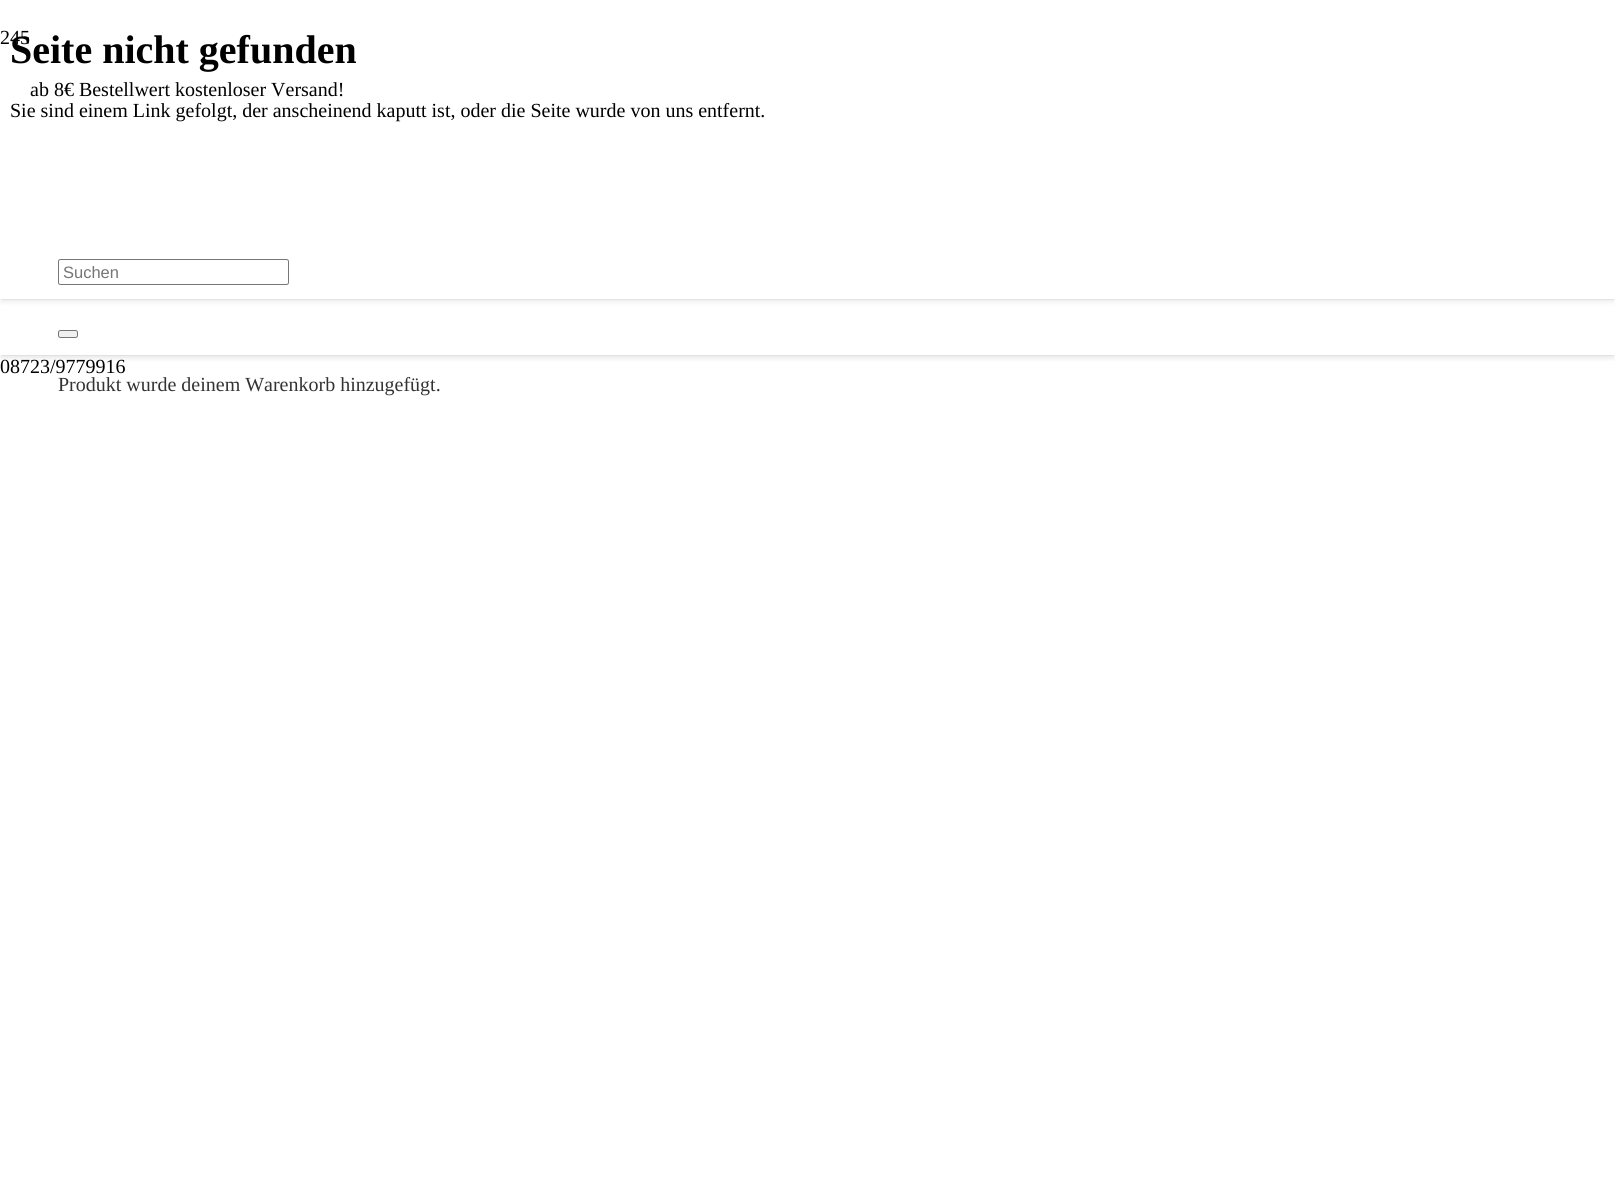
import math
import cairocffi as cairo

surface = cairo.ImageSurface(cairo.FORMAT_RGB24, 1615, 1198)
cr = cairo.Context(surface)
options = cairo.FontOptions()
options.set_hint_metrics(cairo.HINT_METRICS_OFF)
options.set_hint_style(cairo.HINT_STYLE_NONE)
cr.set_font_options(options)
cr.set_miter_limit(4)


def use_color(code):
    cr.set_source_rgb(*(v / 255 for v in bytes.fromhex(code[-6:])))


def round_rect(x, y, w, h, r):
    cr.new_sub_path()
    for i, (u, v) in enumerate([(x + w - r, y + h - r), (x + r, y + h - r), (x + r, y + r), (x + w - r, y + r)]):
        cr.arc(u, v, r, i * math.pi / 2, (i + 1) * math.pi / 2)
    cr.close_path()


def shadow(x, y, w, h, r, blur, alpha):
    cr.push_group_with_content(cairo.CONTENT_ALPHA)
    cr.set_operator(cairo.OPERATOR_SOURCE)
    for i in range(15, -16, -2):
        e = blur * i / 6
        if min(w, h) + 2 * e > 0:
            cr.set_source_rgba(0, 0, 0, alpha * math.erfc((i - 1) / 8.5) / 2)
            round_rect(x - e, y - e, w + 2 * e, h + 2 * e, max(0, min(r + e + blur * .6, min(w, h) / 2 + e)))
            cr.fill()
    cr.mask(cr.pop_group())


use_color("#ffffff")
cr.paint()
cr.select_font_face("Liberation Serif", cairo.FONT_SLANT_NORMAL, cairo.FONT_WEIGHT_BOLD)
cr.set_font_size(40)
use_color("#000000")
cr.move_to(10, 63)
cr.show_text("Seite nicht gefunden")
cr.select_font_face("Liberation Serif")
cr.set_font_size(20)
cr.move_to(0, 44)
cr.show_text("245")
cr.move_to(30, 96)
cr.show_text("ab 8€ Bestellwert kostenloser Versand!")
cr.save()
cr.rectangle(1, 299, 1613, 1)
cr.clip()
use_color("#000000")
shadow(1, 133, 1613, 167, 0, 0.5, 0.05)
cr.restore()
cr.save()
cr.set_fill_rule(cairo.FILL_RULE_EVEN_ODD)
cr.new_path()
cr.move_to(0, 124)
cr.line_to(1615, 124)
cr.line_to(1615, 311)
cr.line_to(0, 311)
cr.close_path()
cr.move_to(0, 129)
cr.line_to(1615, 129)
cr.line_to(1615, 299)
cr.line_to(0, 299)
cr.close_path()
cr.clip()
use_color("#000000")
shadow(1, 134, 1613, 167, 0, 3, 0.1)
cr.restore()
cr.save()
cr.rectangle(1, 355, 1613, 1)
cr.clip()
use_color("#000000")
shadow(1, 303, 1613, 53, 0, 0.5, 0.05)
cr.restore()
cr.save()
cr.rectangle(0, 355, 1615, 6)
cr.clip()
use_color("#000000")
shadow(1, 304, 1613, 54, 0, 3, 0.1)
cr.restore()
round_rect(58.5, 259.5, 230, 25, 2)
use_color("#767676")
cr.set_line_width(1)
cr.stroke()
cr.select_font_face("Liberation Sans")
cr.set_font_size(16.5)
use_color("#757575")
cr.move_to(63, 278)
cr.show_text("Suchen")
use_color("#efefef")
round_rect(58.5, 330.5, 19, 7, 2)
cr.fill_preserve()
use_color("#767676")
cr.stroke()
cr.select_font_face("Liberation Serif")
cr.set_font_size(20)
use_color("#333333")
cr.move_to(58, 391)
cr.show_text("Produkt wurde deinem Warenkorb hinzugefügt.")
use_color("#000000")
cr.move_to(0, 373)
cr.show_text("08723/9779916")
cr.move_to(10, 117)
cr.show_text("Sie sind einem Link gefolgt, der anscheinend kaputt ist, oder die Seite wurde von uns entfernt.")
surface.write_to_png("result.png")
